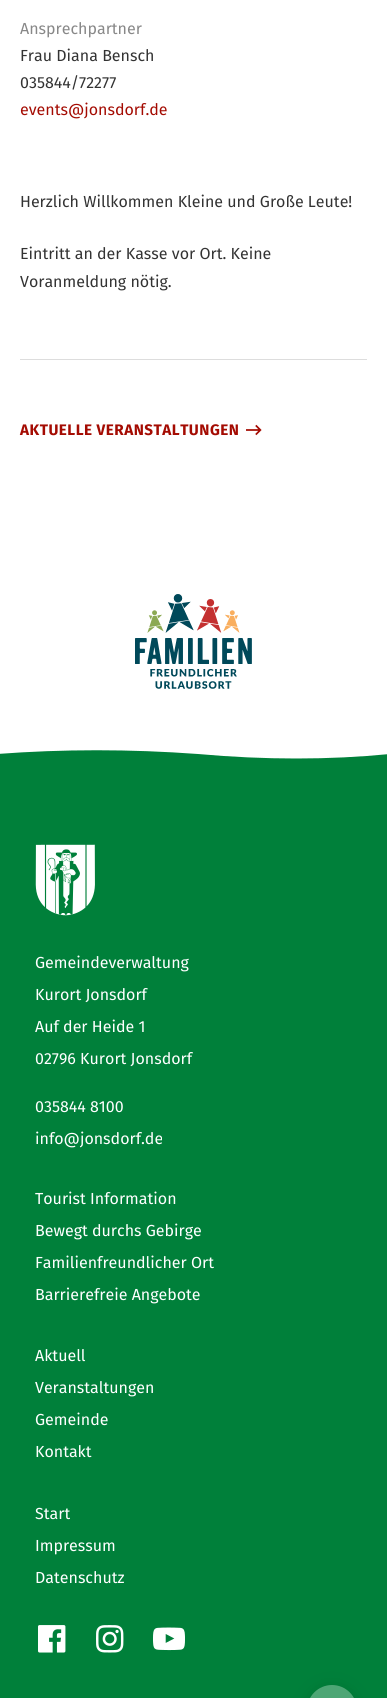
import math
import cairocffi as cairo

surface = cairo.ImageSurface(cairo.FORMAT_RGB24, 387, 1698)
cr = cairo.Context(surface)
options = cairo.FontOptions()
options.set_hint_metrics(cairo.HINT_METRICS_OFF)
options.set_hint_style(cairo.HINT_STYLE_NONE)
cr.set_font_options(options)
cr.set_miter_limit(4)


def use_color(code):
    cr.set_source_rgb(*(v / 255 for v in bytes.fromhex(code[-6:])))


def spaced_text(x, y, s, letter, word):
    cr.move_to(x, y)
    for ch in s:
        cr.show_text(ch)
        cr.rel_move_to(letter + word * (ch == ' '), 0)


def round_rect(x, y, w, h, r):
    cr.new_sub_path()
    for i, (u, v) in enumerate([(x + w - r, y + h - r), (x + r, y + h - r), (x + r, y + r), (x + w - r, y + r)]):
        cr.arc(u, v, r, i * math.pi / 2, (i + 1) * math.pi / 2)
    cr.close_path()


def shadow(x, y, w, h, r, blur, alpha):
    cr.push_group_with_content(cairo.CONTENT_ALPHA)
    cr.set_operator(cairo.OPERATOR_SOURCE)
    for i in range(15, -16, -2):
        e = blur * i / 6
        if min(w, h) + 2 * e > 0:
            cr.set_source_rgba(0, 0, 0, alpha * math.erfc((i - 1) / 8.5) / 2)
            round_rect(x - e, y - e, w + 2 * e, h + 2 * e, max(0, min(r + e + blur * .6, min(w, h) / 2 + e)))
            cr.fill()
    cr.mask(cr.pop_group())


def picture(path, x, y, w, h):
    cr.save()
    cr.set_source_surface(cairo.ImageSurface.create_from_png(path), x, y)
    cr.rectangle(x, y, w, h)
    cr.fill()
    cr.restore()


use_color("#ffffff")
cr.paint()
cr.select_font_face("Fira Sans")
cr.set_font_size(16)
use_color("#888888")
cr.move_to(20, 34)
cr.show_text("Ansprechpartner")
use_color("#333333")
cr.move_to(20, 61)
cr.show_text("Frau Diana Bensch")
cr.move_to(20, 88)
cr.show_text("035844/72277")
use_color("#a40b02")
cr.move_to(20, 115)
cr.show_text("events@jonsdorf.de")
use_color("#333333")
cr.move_to(20, 207)
cr.show_text("Herzlich Willkommen Kleine und Große Leute!")
cr.move_to(20, 259)
cr.show_text("Eintritt an der Kasse vor Ort. Keine")
cr.move_to(20, 287)
cr.show_text("Voranmeldung nötig.")
use_color("#dddddd")
cr.rectangle(20, 359, 347, 1)
cr.fill()
cr.select_font_face("Fira Sans", cairo.FONT_SLANT_NORMAL, cairo.FONT_WEIGHT_BOLD)
cr.set_font_size(15.25)
use_color("#a40b02")
spaced_text(20, 435, "AKTUELLE VERANSTALTUNGEN", 0.5, 0)
picture("img1.png", 246, 424, 16, 12)
picture("img2.png", 135, 594, 117, 95)
use_color("#00803a")
cr.rectangle(0, 780, 387, 918)
cr.fill()
cr.save()
cr.rectangle(0, 750, 387, 30)
cr.clip()
cr.set_fill_rule(cairo.FILL_RULE_EVEN_ODD)
cr.new_path()
cr.move_to(-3, 754)
cr.curve_to(63, 749, 130, 749, 198, 754)
cr.curve_to(265, 760, 329, 760, 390, 754)
cr.line_to(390, 809)
cr.line_to(-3, 809)
cr.close_path()
cr.fill()
cr.restore()
picture("img3.png", 35, 844, 60, 72)
cr.select_font_face("Fira Sans")
cr.set_font_size(16)
use_color("#ffffff")
cr.move_to(35, 968)
cr.show_text("Gemeindeverwaltung")
cr.move_to(35, 1000)
cr.show_text("Kurort Jonsdorf")
cr.move_to(35, 1032)
cr.show_text("Auf der Heide 1")
cr.move_to(35, 1064)
cr.show_text("02796 Kurort Jonsdorf")
cr.move_to(35, 1112)
cr.show_text("035844 8100")
cr.move_to(35, 1144)
cr.show_text("info@jonsdorf.de")
cr.move_to(35, 1204)
cr.show_text("Tourist Information")
cr.move_to(35, 1236)
cr.show_text("Bewegt durchs Gebirge")
cr.move_to(35, 1268)
cr.show_text("Familienfreundlicher Ort")
cr.move_to(35, 1300)
cr.show_text("Barrierefreie Angebote")
cr.move_to(35, 1361)
cr.show_text("Aktuell")
cr.move_to(35, 1393)
cr.show_text("Veranstaltungen")
cr.move_to(35, 1425)
cr.show_text("Gemeinde")
cr.move_to(35, 1457)
cr.show_text("Kontakt")
cr.move_to(35, 1519)
cr.show_text("Start")
cr.move_to(35, 1551)
cr.show_text("Impressum")
cr.move_to(35, 1583)
cr.show_text("Datenschutz")
picture("img4.png", 38, 1625, 28, 28)
picture("img5.png", 96, 1625, 28, 28)
picture("img6.png", 153, 1627, 32, 24)
use_color("#000000")
shadow(312, 1693, 40, 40, 20, 10, 0.2)
use_color("#4da675")
round_rect(307, 1685, 50, 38, 25)
cr.fill()
surface.write_to_png("result.png")
